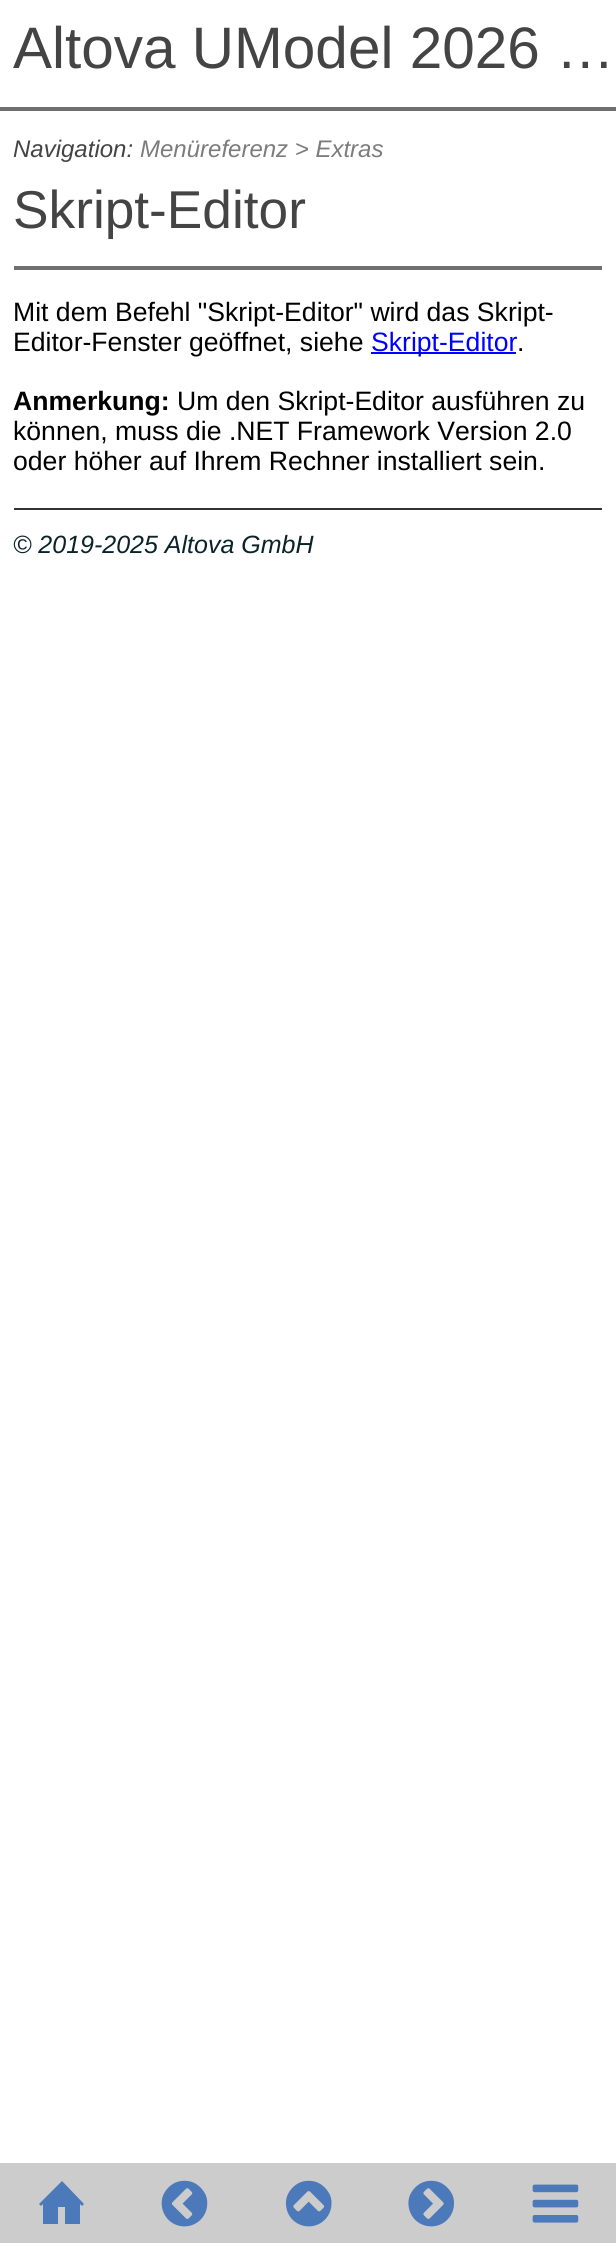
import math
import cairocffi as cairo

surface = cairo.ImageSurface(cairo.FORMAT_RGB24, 616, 2243)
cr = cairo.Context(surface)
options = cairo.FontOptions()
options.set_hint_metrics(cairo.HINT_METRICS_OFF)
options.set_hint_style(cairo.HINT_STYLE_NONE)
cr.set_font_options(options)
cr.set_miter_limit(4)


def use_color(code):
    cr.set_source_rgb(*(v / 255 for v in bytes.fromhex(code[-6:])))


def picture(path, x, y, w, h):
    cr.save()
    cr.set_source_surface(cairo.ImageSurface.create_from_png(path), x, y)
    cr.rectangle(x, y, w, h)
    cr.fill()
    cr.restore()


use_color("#ffffff")
cr.paint()
cr.select_font_face("Liberation Sans")
cr.set_font_size(58.5)
use_color("#444444")
cr.move_to(13, 68)
cr.show_text("Altova UModel 2026 …")
use_color("#707070")
cr.rectangle(0, 107, 616, 4)
cr.fill()
cr.select_font_face("Liberation Sans", cairo.FONT_SLANT_ITALIC)
cr.set_font_size(24)
use_color("#444444")
cr.move_to(13, 157)
cr.show_text("Navigation:")
use_color("#7c7c7c")
cr.move_to(140, 157)
cr.show_text("Menüreferenz > Extras")
cr.select_font_face("Liberation Sans")
cr.set_font_size(53.25)
use_color("#444444")
cr.move_to(13, 228)
cr.show_text("Skript-Editor")
use_color("#707070")
cr.rectangle(14, 266, 588, 4)
cr.fill()
cr.set_font_size(26.6)
use_color("#000000")
cr.move_to(13, 321)
cr.show_text("Mit dem Befehl \"Skript-Editor\" wird das Skript-")
cr.move_to(13, 351)
cr.show_text("Editor-Fenster geöffnet, siehe")
use_color("#0000ff")
cr.rectangle(371, 352, 145, 2)
cr.fill()
cr.move_to(371, 351)
cr.show_text("Skript-Editor")
use_color("#000000")
cr.move_to(517, 351)
cr.show_text(".")
cr.select_font_face("Liberation Sans", cairo.FONT_SLANT_NORMAL, cairo.FONT_WEIGHT_BOLD)
cr.move_to(13, 410)
cr.show_text("Anmerkung:")
cr.select_font_face("Liberation Sans")
cr.move_to(177, 410)
cr.show_text("Um den Skript-Editor ausführen zu")
cr.move_to(13, 440)
cr.show_text("können, muss die .NET Framework Version 2.0")
cr.move_to(13, 470)
cr.show_text("oder höher auf Ihrem Rechner installiert sein.")
use_color("#333333")
cr.rectangle(14, 508, 588, 2)
cr.fill()
cr.select_font_face("Liberation Sans", cairo.FONT_SLANT_ITALIC)
cr.set_font_size(25)
use_color("#0a2229")
cr.move_to(13, 553)
cr.show_text("© 2019-2025 Altova GmbH")
use_color("#cccccc")
cr.rectangle(0, 2163, 616, 80)
cr.fill()
use_color("#4c79b9")
cr.new_path()
cr.move_to(62, 2181)
cr.line_to(39, 2204)
cr.line_to(41, 2206)
cr.line_to(43, 2204)
cr.line_to(43, 2224)
cr.line_to(58, 2224)
cr.line_to(58, 2207)
cr.line_to(65, 2207)
cr.line_to(65, 2224)
cr.line_to(80, 2224)
cr.line_to(80, 2204)
cr.line_to(82, 2206)
cr.line_to(84, 2204)
cr.line_to(63, 2182)
cr.close_path()
cr.fill()
picture("img1.png", 161, 2180, 47, 47)
picture("img2.png", 285, 2180, 47, 47)
picture("img3.png", 408, 2180, 46, 47)
picture("img4.png", 532, 2184, 47, 39)
surface.write_to_png("result.png")
